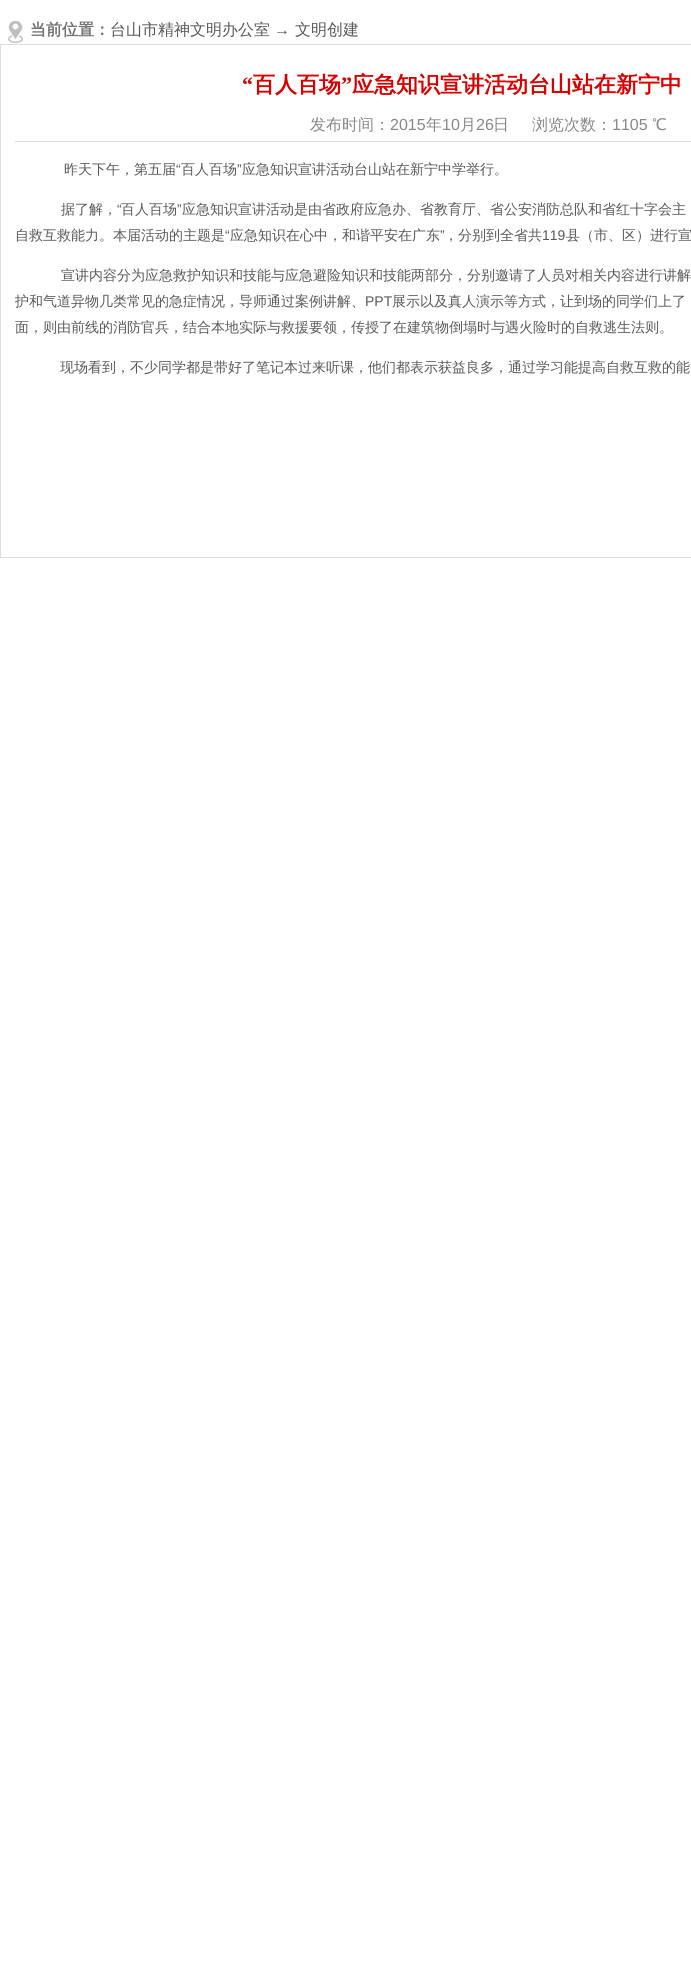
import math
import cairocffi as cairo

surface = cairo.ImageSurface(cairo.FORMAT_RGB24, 691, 1986)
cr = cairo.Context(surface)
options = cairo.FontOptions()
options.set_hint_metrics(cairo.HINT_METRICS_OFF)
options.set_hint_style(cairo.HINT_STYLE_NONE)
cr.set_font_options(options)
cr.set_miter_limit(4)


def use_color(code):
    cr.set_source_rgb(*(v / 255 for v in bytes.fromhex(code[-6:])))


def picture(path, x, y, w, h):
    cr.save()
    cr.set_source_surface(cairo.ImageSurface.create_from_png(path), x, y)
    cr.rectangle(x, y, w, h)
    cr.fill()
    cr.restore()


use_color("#ffffff")
cr.paint()
picture("img1.png", 8, 21, 15, 22)
cr.select_font_face("WenQuanYi Zen Hei", cairo.FONT_SLANT_NORMAL, cairo.FONT_WEIGHT_BOLD)
cr.set_font_size(16)
use_color("#727272")
cr.move_to(30, 35)
cr.show_text("当前位置：")
cr.select_font_face("WenQuanYi Zen Hei Medium")
use_color("#585858")
cr.move_to(110, 35)
cr.show_text("台山市精神文明办公室")
cr.select_font_face("Liberation Sans")
cr.move_to(274, 35)
cr.show_text("→")
cr.select_font_face("WenQuanYi Zen Hei Medium")
cr.move_to(295, 35)
cr.show_text("文明创建")
use_color("#dddddd")
cr.rectangle(0, 44, 691, 514)
cr.fill()
use_color("#ffffff")
cr.rectangle(1, 45, 690, 512)
cr.fill()
cr.select_font_face("Liberation Serif", cairo.FONT_SLANT_NORMAL, cairo.FONT_WEIGHT_BOLD)
cr.set_font_size(22)
use_color("#d90000")
cr.move_to(242, 92)
cr.show_text("“")
cr.select_font_face("WenQuanYi Zen Hei", cairo.FONT_SLANT_NORMAL, cairo.FONT_WEIGHT_BOLD)
cr.move_to(253, 92)
cr.show_text("百人百场")
cr.select_font_face("Liberation Serif", cairo.FONT_SLANT_NORMAL, cairo.FONT_WEIGHT_BOLD)
cr.move_to(341, 92)
cr.show_text("”")
cr.select_font_face("WenQuanYi Zen Hei", cairo.FONT_SLANT_NORMAL, cairo.FONT_WEIGHT_BOLD)
cr.move_to(352, 92)
cr.show_text("应急知识宣讲活动台山站在新宁中")
use_color("#dddddd")
cr.rectangle(15, 141, 676, 1)
cr.fill()
cr.select_font_face("WenQuanYi Zen Hei Medium")
cr.set_font_size(16)
use_color("#888888")
cr.move_to(310, 130)
cr.show_text("发布时间：")
cr.select_font_face("Liberation Sans")
cr.move_to(390, 130)
cr.show_text("2015")
cr.select_font_face("WenQuanYi Zen Hei Medium")
cr.move_to(426, 130)
cr.show_text("年")
cr.select_font_face("Liberation Sans")
cr.move_to(442, 130)
cr.show_text("10")
cr.select_font_face("WenQuanYi Zen Hei Medium")
cr.move_to(460, 130)
cr.show_text("月")
cr.select_font_face("Liberation Sans")
cr.move_to(476, 130)
cr.show_text("26")
cr.select_font_face("WenQuanYi Zen Hei Medium")
cr.move_to(493, 130)
cr.show_text("日")
cr.move_to(532, 130)
cr.show_text("浏览次数：")
cr.select_font_face("Liberation Sans")
cr.move_to(612, 130)
cr.show_text("1105")
cr.select_font_face("WenQuanYi Zen Hei Medium")
cr.move_to(652, 130)
cr.show_text("℃")
cr.set_font_size(14)
use_color("#585858")
cr.move_to(64, 174)
cr.show_text("昨天下午，第五届")
cr.select_font_face("Liberation Sans")
cr.move_to(176, 174)
cr.show_text("“")
cr.select_font_face("WenQuanYi Zen Hei Medium")
cr.move_to(181, 174)
cr.show_text("百人百场")
cr.select_font_face("Liberation Sans")
cr.move_to(237, 174)
cr.show_text("”")
cr.select_font_face("WenQuanYi Zen Hei Medium")
cr.move_to(242, 174)
cr.show_text("应急知识宣讲活动台山站在新宁中学举行。")
cr.move_to(61, 214)
cr.show_text("据了解，")
cr.select_font_face("Liberation Sans")
cr.move_to(117, 214)
cr.show_text("“")
cr.select_font_face("WenQuanYi Zen Hei Medium")
cr.move_to(121, 214)
cr.show_text("百人百场")
cr.select_font_face("Liberation Sans")
cr.move_to(177, 214)
cr.show_text("”")
cr.select_font_face("WenQuanYi Zen Hei Medium")
cr.move_to(182, 214)
cr.show_text("应急知识宣讲活动是由省政府应急办、省教育厅、省公安消防总队和省红十字会主")
cr.move_to(15, 240)
cr.show_text("自救互救能力。本届活动的主题是")
cr.select_font_face("Liberation Sans")
cr.move_to(225, 240)
cr.show_text("“")
cr.select_font_face("WenQuanYi Zen Hei Medium")
cr.move_to(230, 240)
cr.show_text("应急知识在心中，和谐平安在广东")
cr.select_font_face("Liberation Sans")
cr.move_to(440, 240)
cr.show_text("”")
cr.select_font_face("WenQuanYi Zen Hei Medium")
cr.move_to(444, 240)
cr.show_text("，分别到全省共")
cr.select_font_face("Liberation Sans")
cr.move_to(542, 240)
cr.show_text("119")
cr.select_font_face("WenQuanYi Zen Hei Medium")
cr.move_to(566, 240)
cr.show_text("县（市、区）进行宣")
cr.move_to(61, 280)
cr.show_text("宣讲内容分为应急救护知识和技能与应急避险知识和技能两部分，分别邀请了人员对相关内容进行讲解")
cr.move_to(15, 306)
cr.show_text("护和气道异物几类常见的急症情况，导师通过案例讲解、")
cr.select_font_face("Liberation Sans")
cr.move_to(365, 306)
cr.show_text("PPT")
cr.select_font_face("WenQuanYi Zen Hei Medium")
cr.move_to(392, 306)
cr.show_text("展示以及真人演示等方式，让到场的同学们上了")
cr.move_to(15, 332)
cr.show_text("面，则由前线的消防官兵，结合本地实际与救援要领，传授了在建筑物倒塌时与遇火险时的自救逃生法则。")
cr.move_to(60, 372)
cr.show_text("现场看到，不少同学都是带好了笔记本过来听课，他们都表示获益良多，通过学习能提高自救互救的能")
surface.write_to_png("result.png")
